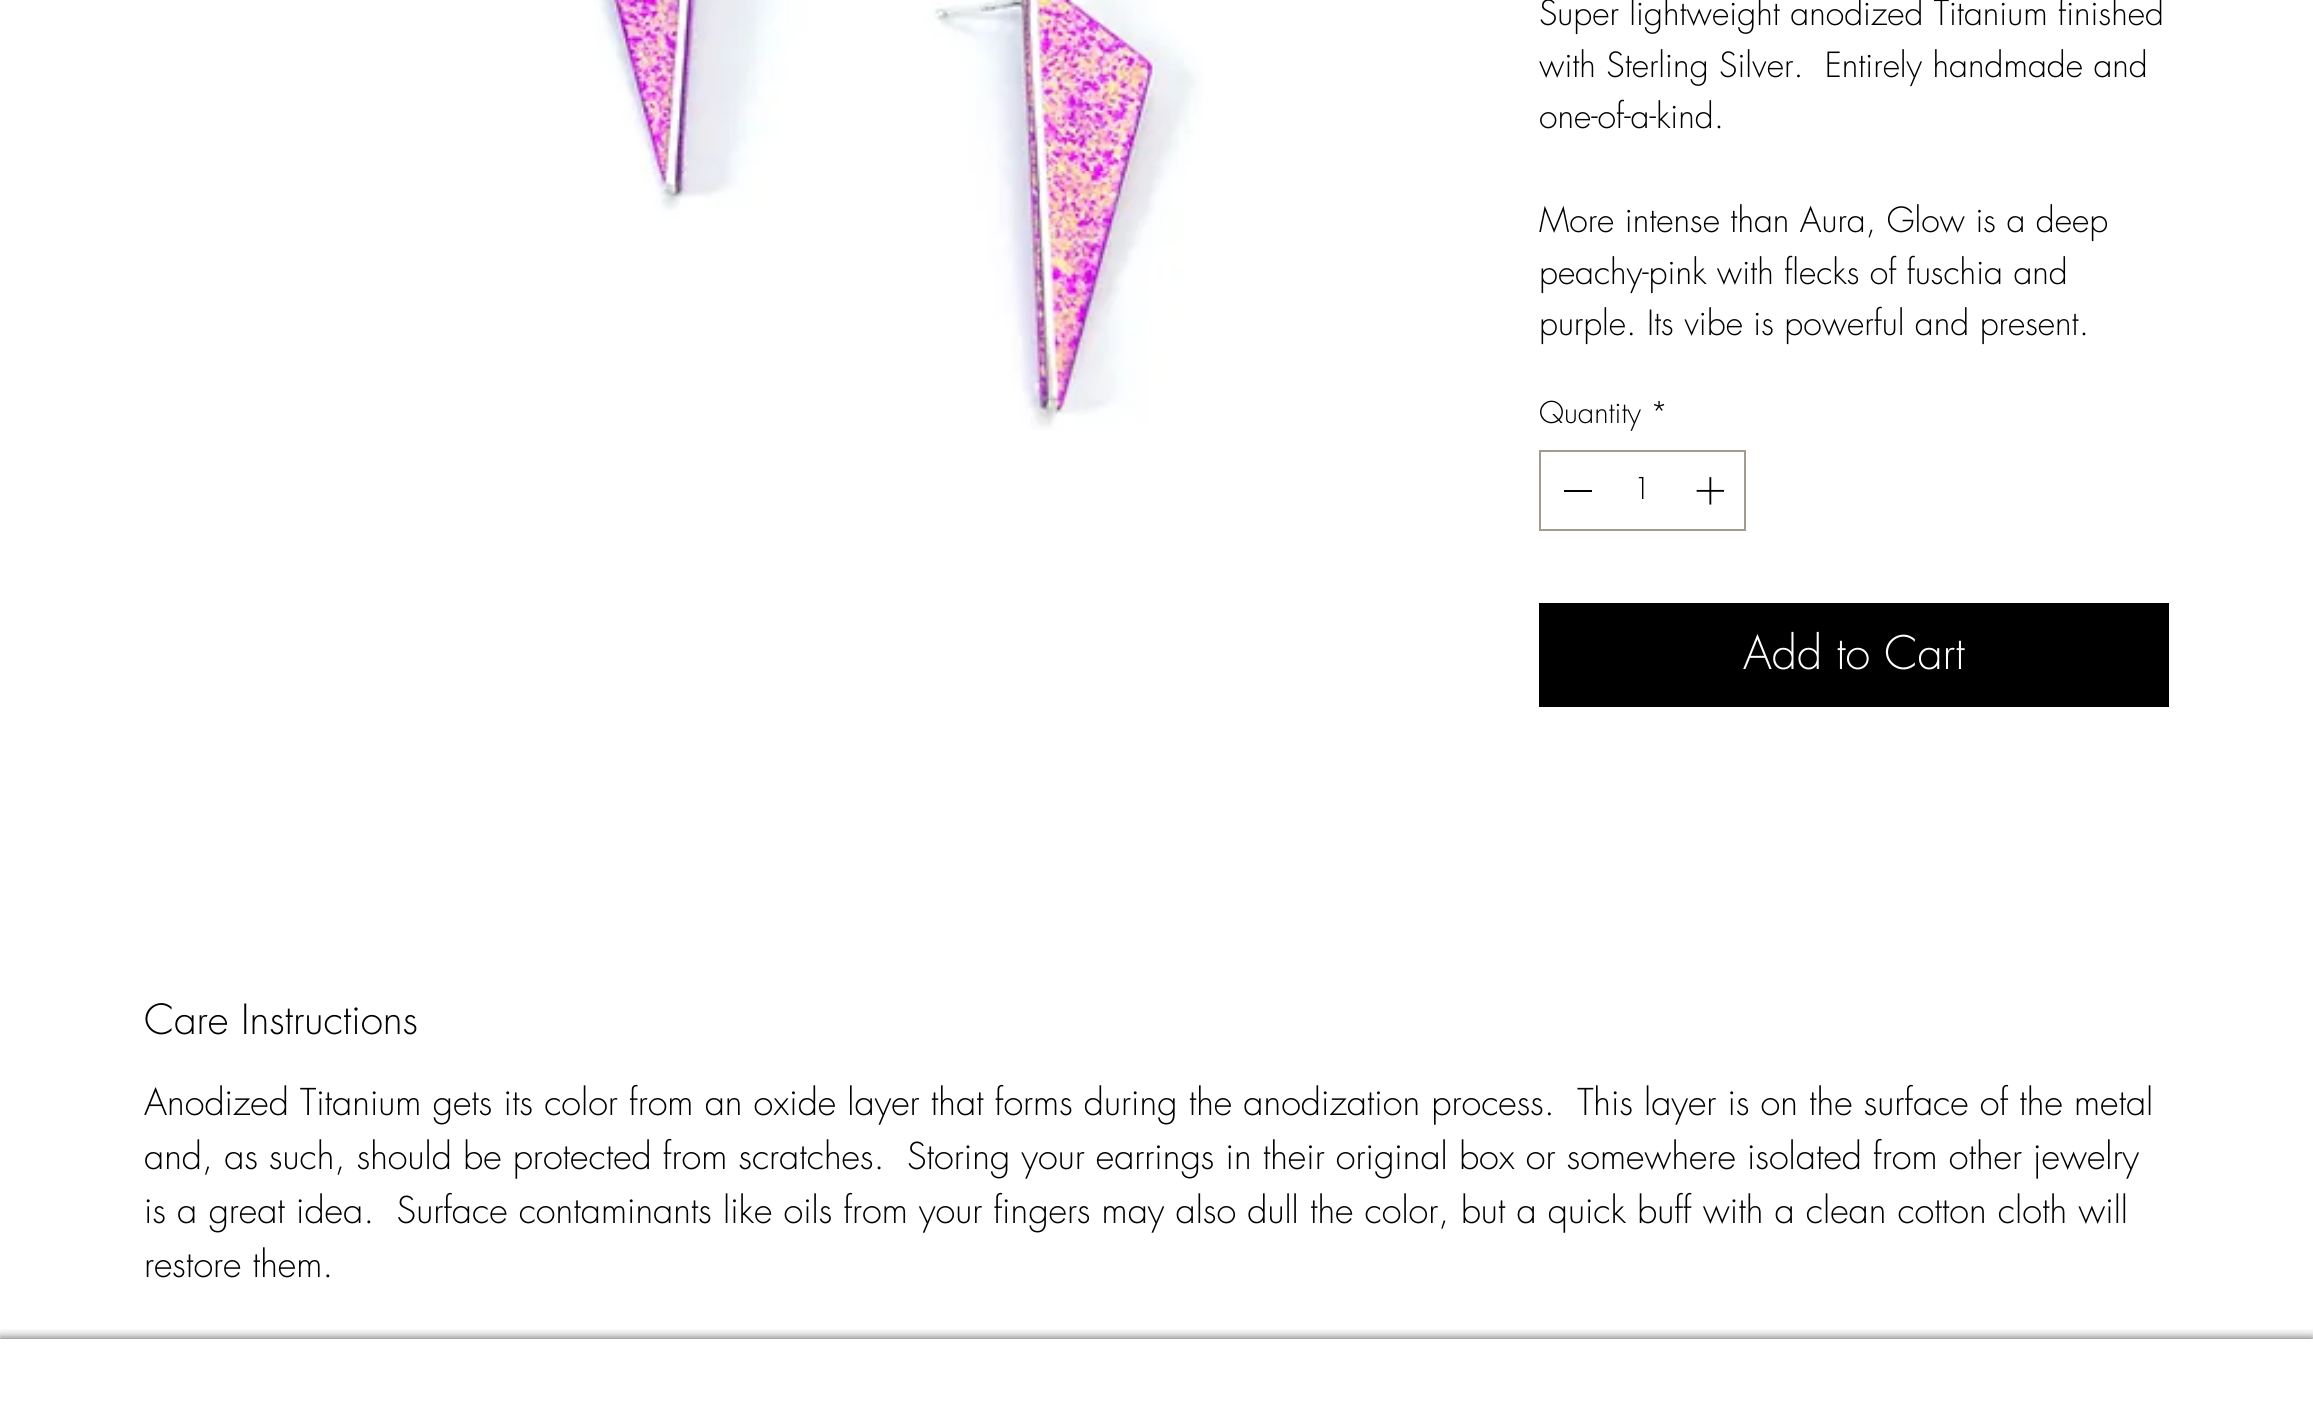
import math
import cairocffi as cairo

surface = cairo.ImageSurface(cairo.FORMAT_RGB24, 2313, 1420)
cr = cairo.Context(surface)
options = cairo.FontOptions()
options.set_hint_metrics(cairo.HINT_METRICS_OFF)
options.set_hint_style(cairo.HINT_STYLE_NONE)
cr.set_font_options(options)
cr.set_miter_limit(4)


def use_color(code):
    cr.set_source_rgb(*(v / 255 for v in bytes.fromhex(code[-6:])))


def round_rect(x, y, w, h, r):
    cr.new_sub_path()
    for i, (u, v) in enumerate([(x + w - r, y + h - r), (x + r, y + h - r), (x + r, y + r), (x + w - r, y + r)]):
        cr.arc(u, v, r, i * math.pi / 2, (i + 1) * math.pi / 2)
    cr.close_path()


def shadow(x, y, w, h, r, blur, alpha):
    cr.push_group_with_content(cairo.CONTENT_ALPHA)
    cr.set_operator(cairo.OPERATOR_SOURCE)
    for i in range(15, -16, -2):
        e = blur * i / 6
        if min(w, h) + 2 * e > 0:
            cr.set_source_rgba(0, 0, 0, alpha * math.erfc((i - 1) / 8.5) / 2)
            round_rect(x - e, y - e, w + 2 * e, h + 2 * e, max(0, min(r + e + blur * .6, min(w, h) / 2 + e)))
            cr.fill()
    cr.mask(cr.pop_group())


def picture(path, x, y, w, h):
    cr.save()
    cr.set_source_surface(cairo.ImageSurface.create_from_png(path), x, y)
    cr.rectangle(x, y, w, h)
    cr.fill()
    cr.restore()


use_color("#ffffff")
cr.paint()
picture("img1.png", 594, 0, 609, 430)
cr.select_font_face("futura Light")
cr.set_font_size(33.75)
use_color("#000000")
cr.move_to(1539, 25)
cr.show_text("Super lightweight anodized Titanium finished")
cr.move_to(1539, 77)
cr.show_text("with Sterling Silver.  Entirely handmade and")
cr.move_to(1539, 128)
cr.show_text("one-of-a-kind.")
cr.move_to(1539, 232)
cr.show_text("More intense than Aura, Glow is a deep")
cr.move_to(1539, 284)
cr.show_text("peachy-pink with flecks of fuschia and")
cr.move_to(1539, 335)
cr.show_text("purple. Its vibe is powerful and present.")
cr.set_font_size(29.25)
cr.move_to(1539, 423)
cr.show_text("Quantity *")
cr.rectangle(1540, 451, 205, 79)
use_color("#a29b8f")
cr.stroke()
use_color("#000000")
cr.rectangle(1564, 490, 28, 2)
cr.fill()
cr.move_to(1633, 499)
cr.show_text("1")
picture("img2.png", 1696, 477, 29, 28)
cr.rectangle(1539, 603, 630, 104)
cr.fill()
cr.set_font_size(45)
use_color("#ffffff")
cr.move_to(1743, 669)
cr.show_text("Add to Cart")
cr.set_font_size(40.5)
use_color("#000000")
cr.move_to(144, 1034)
cr.show_text("Care Instructions")
cr.set_font_size(36)
cr.move_to(144, 1115)
cr.show_text("Anodized Titanium gets its color from an oxide layer that forms during the anodization process.  This layer is on the surface of the metal")
cr.move_to(144, 1169)
cr.show_text("and, as such, should be protected from scratches.  Storing your earrings in their original box or somewhere isolated from other jewelry")
cr.move_to(144, 1223)
cr.show_text("is a great idea.  Surface contaminants like oils from your fingers may also dull the color, but a quick buff with a clean cotton cloth will")
cr.move_to(144, 1277)
cr.show_text("restore them.")
cr.save()
cr.rectangle(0, 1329, 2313, 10)
cr.clip()
use_color("#000000")
shadow(0, 1339, 2313, 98, 0, 5.5, 0.7)
cr.restore()
surface.write_to_png("result.png")
